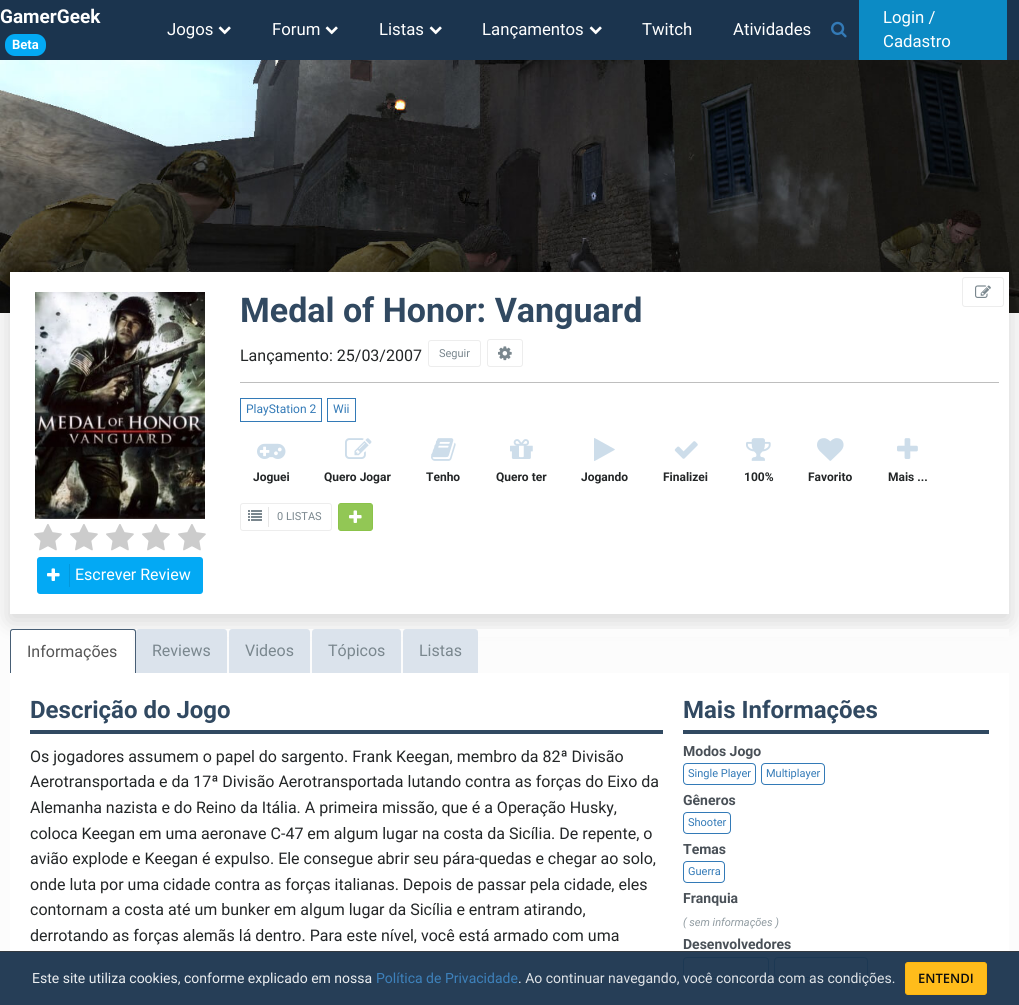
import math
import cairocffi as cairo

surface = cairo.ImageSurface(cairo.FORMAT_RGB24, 1019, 1005)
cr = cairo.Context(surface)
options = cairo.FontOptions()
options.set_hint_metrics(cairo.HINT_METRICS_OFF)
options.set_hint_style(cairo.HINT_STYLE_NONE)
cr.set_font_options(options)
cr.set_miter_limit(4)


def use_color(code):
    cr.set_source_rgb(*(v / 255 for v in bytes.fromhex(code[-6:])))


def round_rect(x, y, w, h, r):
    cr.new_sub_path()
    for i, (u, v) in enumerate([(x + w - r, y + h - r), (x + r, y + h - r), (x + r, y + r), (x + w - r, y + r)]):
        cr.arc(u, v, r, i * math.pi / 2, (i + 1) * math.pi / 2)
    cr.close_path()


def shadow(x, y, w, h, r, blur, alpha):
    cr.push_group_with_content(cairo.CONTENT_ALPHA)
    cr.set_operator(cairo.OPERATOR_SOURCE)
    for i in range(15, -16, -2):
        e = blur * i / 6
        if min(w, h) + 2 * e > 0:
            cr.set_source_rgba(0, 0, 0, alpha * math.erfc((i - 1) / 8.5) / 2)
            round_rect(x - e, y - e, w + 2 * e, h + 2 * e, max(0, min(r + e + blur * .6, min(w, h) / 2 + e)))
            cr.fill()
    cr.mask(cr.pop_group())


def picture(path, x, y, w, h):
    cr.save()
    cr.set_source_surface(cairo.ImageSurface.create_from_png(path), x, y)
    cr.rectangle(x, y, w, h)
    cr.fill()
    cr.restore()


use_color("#fcfcfc")
cr.paint()
use_color("#263e57")
cr.rectangle(0, 952, 1019, 53)
cr.fill()
use_color("#1b344e")
cr.rectangle(0, 0, 1019, 60)
cr.fill()
cr.select_font_face("Roboto", cairo.FONT_SLANT_NORMAL, cairo.FONT_WEIGHT_BOLD)
cr.set_font_size(19)
use_color("#ffffff")
cr.move_to(0, 23)
cr.show_text("GamerGeek")
use_color("#03a9f4")
round_rect(5, 34, 41, 22, 10)
cr.fill()
cr.set_font_size(13)
use_color("#ffffff")
cr.move_to(12, 49)
cr.show_text("Beta")
cr.select_font_face("Roboto")
cr.set_font_size(16.75)
cr.move_to(167, 35)
cr.show_text("Jogos")
picture("img1.png", 218, 26, 13, 9)
cr.move_to(272, 35)
cr.show_text("Forum")
picture("img1.png", 325, 26, 13, 9)
cr.move_to(379, 35)
cr.show_text("Listas")
picture("img1.png", 429, 26, 13, 9)
cr.move_to(482, 35)
cr.show_text("Lançamentos")
picture("img1.png", 589, 26, 13, 9)
cr.move_to(642, 35)
cr.show_text("Twitch")
cr.move_to(733, 35)
cr.show_text("Atividades")
picture("img2.png", 831, 21, 16, 17)
use_color("#0c8bc5")
cr.rectangle(859, 0, 148, 60)
cr.fill()
use_color("#ffffff")
cr.move_to(883, 23)
cr.show_text("Login /")
cr.move_to(883, 47)
cr.show_text("Cadastro")
picture("img3.png", 0, 60, 1019, 253)
use_color("#000000")
shadow(10, 278, 999, 342, 0, 11.5, 0.16)
use_color("#ffffff")
cr.rectangle(10, 272, 999, 342)
cr.fill()
round_rect(962.5, 277.5, 41, 29, 2.5)
use_color("#ededed")
cr.set_line_width(1)
cr.stroke()
picture("img4.png", 975, 285, 16, 13)
cr.select_font_face("Roboto", cairo.FONT_SLANT_NORMAL, cairo.FONT_WEIGHT_BOLD)
cr.set_font_size(34)
use_color("#314961")
cr.move_to(240, 322)
cr.show_text("Medal of Honor: Vanguard")
cr.select_font_face("Roboto")
cr.set_font_size(16)
use_color("#232627")
cr.move_to(240, 361)
cr.show_text("Lançamento: 25/03/2007")
round_rect(428.5, 340.5, 52, 26, 2.5)
use_color("#ededed")
cr.stroke()
cr.set_font_size(11)
use_color("#7a878e")
cr.move_to(439, 357)
cr.show_text("Seguir")
round_rect(487.5, 339.5, 35, 27, 2.5)
use_color("#ededed")
cr.stroke()
picture("img5.png", 498, 346, 14, 15)
use_color("#bebebe")
cr.rectangle(240, 382, 759, 1)
cr.fill()
cr.rectangle(240.5, 398.5, 81, 23)
use_color("#337ab7")
cr.stroke()
cr.set_font_size(12)
cr.move_to(246, 413)
cr.show_text("PlayStation 2")
cr.rectangle(327.5, 398.5, 28, 23)
cr.stroke()
cr.move_to(333, 413)
cr.show_text("Wii")
picture("img6.png", 257, 443, 29, 16)
cr.select_font_face("Roboto", cairo.FONT_SLANT_NORMAL, cairo.FONT_WEIGHT_BOLD)
use_color("#232627")
cr.move_to(253, 481)
cr.show_text("Joguei")
picture("img7.png", 345, 438, 27, 21)
cr.move_to(324, 481)
cr.show_text("Quero Jogar")
picture("img8.png", 431, 438, 25, 23)
cr.move_to(426, 481)
cr.show_text("Tenho")
picture("img9.png", 510, 439, 23, 20)
cr.move_to(496, 481)
cr.show_text("Quero ter")
picture("img10.png", 594, 438, 21, 23)
cr.move_to(581, 481)
cr.show_text("Jogando")
picture("img11.png", 674, 441, 24, 18)
cr.move_to(663, 481)
cr.show_text("Finalizei")
picture("img12.png", 746, 438, 25, 23)
cr.move_to(744, 481)
cr.show_text("100%")
picture("img13.png", 817, 438, 27, 23)
cr.move_to(808, 481)
cr.show_text("Favorito")
picture("img14.png", 897, 438, 21, 21)
cr.move_to(888, 481)
cr.show_text("Mais ...")
round_rect(240.5, 503.5, 91, 27, 2.5)
use_color("#ededed")
cr.stroke()
use_color("#e6e6e6")
cr.rectangle(268, 507, 1, 20)
cr.fill()
picture("img15.png", 248, 510, 14, 11)
cr.select_font_face("Roboto")
cr.set_font_size(11)
use_color("#7a878e")
cr.move_to(277, 520)
cr.show_text("0 LISTAS")
use_color("#92c755")
round_rect(338.5, 503.5, 34, 27, 2.5)
cr.fill_preserve()
use_color("#8bc34a")
cr.stroke()
picture("img16.png", 349, 510, 13, 13)
picture("img17.png", 35, 292, 170, 227)
picture("img18.png", 34, 524, 14, 27)
picture("img19.png", 48, 524, 14, 27)
picture("img18.png", 70, 524, 14, 27)
picture("img19.png", 84, 524, 14, 27)
picture("img18.png", 106, 524, 14, 27)
picture("img19.png", 120, 524, 14, 27)
picture("img18.png", 142, 524, 14, 27)
picture("img19.png", 156, 524, 14, 27)
picture("img18.png", 178, 524, 14, 27)
picture("img19.png", 192, 524, 14, 27)
use_color("#03a9f4")
round_rect(37, 557, 166, 37, 3)
cr.fill()
use_color("#0398dc")
cr.rectangle(69, 564, 1, 23)
cr.fill()
picture("img20.png", 47, 568, 13, 13)
cr.set_font_size(16)
use_color("#ffffff")
cr.move_to(75, 580)
cr.show_text("Escrever Review")
use_color("#fcfcfc")
cr.rectangle(10, 629, 999, 8)
cr.fill()
use_color("#475e75")
cr.set_fill_rule(cairo.FILL_RULE_EVEN_ODD)
cr.new_path()
cr.move_to(13, 629)
cr.line_to(133, 629)
cr.curve_to(135, 629, 136, 630, 136, 632)
cr.line_to(136, 674)
cr.line_to(10, 674)
cr.line_to(10, 632)
cr.curve_to(10, 630, 11, 629, 13, 629)
cr.close_path()
cr.move_to(13, 630)
cr.line_to(133, 630)
cr.curve_to(134, 630, 135, 631, 135, 632)
cr.line_to(135, 674)
cr.line_to(11, 674)
cr.line_to(11, 632)
cr.curve_to(11, 631, 12, 630, 13, 630)
cr.close_path()
cr.fill()
use_color("#ffffff")
cr.new_path()
cr.move_to(14, 630)
cr.line_to(130, 630)
cr.curve_to(131.5, 630, 133, 631.5, 133, 633)
cr.line_to(133, 673)
cr.line_to(11, 673)
cr.line_to(11, 633)
cr.curve_to(11, 631.5, 12.5, 630, 14, 630)
cr.close_path()
cr.fill()
use_color("#555555")
cr.move_to(27, 657)
cr.show_text("Informações")
use_color("#dbe3ec")
cr.new_path()
cr.move_to(139, 629)
cr.line_to(224, 629)
cr.curve_to(225.5, 629, 227, 630.5, 227, 632)
cr.line_to(227, 673)
cr.line_to(136, 673)
cr.line_to(136, 632)
cr.curve_to(136, 630.5, 137.5, 629, 139, 629)
cr.close_path()
cr.fill()
use_color("#7a878e")
cr.move_to(152, 656)
cr.show_text("Reviews")
use_color("#dbe3ec")
cr.new_path()
cr.move_to(232, 629)
cr.line_to(307, 629)
cr.curve_to(308.5, 629, 310, 630.5, 310, 632)
cr.line_to(310, 673)
cr.line_to(229, 673)
cr.line_to(229, 632)
cr.curve_to(229, 630.5, 230.5, 629, 232, 629)
cr.close_path()
cr.fill()
use_color("#7a878e")
cr.move_to(245, 656)
cr.show_text("Videos")
use_color("#dbe3ec")
cr.new_path()
cr.move_to(315, 629)
cr.line_to(398, 629)
cr.curve_to(399.5, 629, 401, 630.5, 401, 632)
cr.line_to(401, 673)
cr.line_to(312, 673)
cr.line_to(312, 632)
cr.curve_to(312, 630.5, 313.5, 629, 315, 629)
cr.close_path()
cr.fill()
use_color("#7a878e")
cr.move_to(328, 656)
cr.show_text("Tópicos")
use_color("#dbe3ec")
cr.new_path()
cr.move_to(406, 629)
cr.line_to(475, 629)
cr.curve_to(476.5, 629, 478, 630.5, 478, 632)
cr.line_to(478, 673)
cr.line_to(403, 673)
cr.line_to(403, 632)
cr.curve_to(403, 630.5, 404.5, 629, 406, 629)
cr.close_path()
cr.fill()
use_color("#7a878e")
cr.move_to(419, 656)
cr.show_text("Listas")
use_color("#ffffff")
cr.rectangle(10, 673, 999, 278)
cr.fill()
use_color("#314961")
cr.rectangle(30, 730, 633, 4)
cr.fill()
cr.select_font_face("Roboto", cairo.FONT_SLANT_NORMAL, cairo.FONT_WEIGHT_BOLD)
cr.set_font_size(24)
cr.move_to(30, 718)
cr.show_text("Descrição do Jogo")
cr.select_font_face("Roboto")
cr.set_font_size(16)
use_color("#232627")
cr.move_to(30, 762)
cr.show_text("Os jogadores assumem o papel do sargento. Frank Keegan, membro da 82ª Divisão")
cr.move_to(30, 787)
cr.show_text("Aerotransportada e da 17ª Divisão Aerotransportada lutando contra as forças do Eixo da")
cr.move_to(30, 813)
cr.show_text("Alemanha nazista e do Reino da Itália. A primeira missão, que é a Operação Husky,")
cr.move_to(30, 839)
cr.show_text("coloca Keegan em uma aeronave C-47 em algum lugar na costa da Sicília. De repente, o")
cr.move_to(30, 864)
cr.show_text("avião explode e Keegan é expulso. Ele consegue abrir seu pára-quedas e chegar ao solo,")
cr.move_to(30, 890)
cr.show_text("onde luta por uma cidade contra as forças italianas. Depois de passar pela cidade, eles")
cr.move_to(30, 915)
cr.show_text("contornam a costa até um bunker em algum lugar da Sicília e entram atirando,")
cr.move_to(30, 941)
cr.show_text("derrotando as forças alemãs lá dentro. Para este nível, você está armado com uma")
use_color("#314961")
cr.rectangle(683, 730, 306, 4)
cr.fill()
cr.select_font_face("Roboto", cairo.FONT_SLANT_NORMAL, cairo.FONT_WEIGHT_BOLD)
cr.set_font_size(24)
cr.move_to(683, 718)
cr.show_text("Mais Informações")
cr.set_font_size(14)
use_color("#495057")
cr.move_to(683, 756)
cr.show_text("Modos Jogo")
round_rect(683.5, 763.5, 72, 21, 3.5)
use_color("#337ab7")
cr.stroke()
cr.select_font_face("Roboto")
cr.set_font_size(11)
cr.move_to(688, 777)
cr.show_text("Single Player")
round_rect(761.5, 763.5, 63, 21, 3.5)
cr.stroke()
cr.move_to(766, 777)
cr.show_text("Multiplayer")
cr.select_font_face("Roboto", cairo.FONT_SLANT_NORMAL, cairo.FONT_WEIGHT_BOLD)
cr.set_font_size(14)
use_color("#495057")
cr.move_to(683, 805)
cr.show_text("Gêneros")
round_rect(683.5, 812.5, 47, 21, 3.5)
use_color("#337ab7")
cr.stroke()
cr.select_font_face("Roboto")
cr.set_font_size(11)
cr.move_to(688, 826)
cr.show_text("Shooter")
cr.select_font_face("Roboto", cairo.FONT_SLANT_NORMAL, cairo.FONT_WEIGHT_BOLD)
cr.set_font_size(14)
use_color("#495057")
cr.move_to(683, 854)
cr.show_text("Temas")
round_rect(683.5, 861.5, 41, 21, 3.5)
use_color("#337ab7")
cr.stroke()
cr.select_font_face("Roboto")
cr.set_font_size(11)
cr.move_to(688, 875)
cr.show_text("Guerra")
cr.select_font_face("Roboto", cairo.FONT_SLANT_NORMAL, cairo.FONT_WEIGHT_BOLD)
cr.set_font_size(14)
use_color("#495057")
cr.move_to(683, 903)
cr.show_text("Franquia")
cr.select_font_face("Roboto", cairo.FONT_SLANT_ITALIC)
cr.set_font_size(11)
use_color("#909ba1")
cr.move_to(683, 926)
cr.show_text("( sem informações )")
cr.select_font_face("Roboto", cairo.FONT_SLANT_NORMAL, cairo.FONT_WEIGHT_BOLD)
cr.set_font_size(14)
use_color("#495057")
cr.move_to(683, 949)
cr.show_text("Desenvolvedores")
round_rect(683.5, 957.5, 85, 20, 3.5)
use_color("#1c3853")
cr.stroke()
round_rect(774.5, 957.5, 93, 20, 3.5)
cr.stroke()
use_color("#333a41")
cr.rectangle(0, 951, 1019, 1)
cr.fill()
cr.select_font_face("Roboto")
use_color("#eaedf0")
cr.move_to(32, 983)
cr.show_text("Este site utiliza cookies, conforme explicado em nossa")
use_color("#3d81bb")
cr.move_to(376, 983)
cr.show_text("Política de Privacidade")
use_color("#dfe3e7")
cr.move_to(518, 983)
cr.show_text(". Ao continuar navegando, você concorda com as condições.")
use_color("#ffbc1b")
round_rect(905.5, 962.5, 81, 32, 2.5)
cr.fill_preserve()
use_color("#ffb70d")
cr.stroke()
cr.select_font_face("Open Sans SemiBold")
cr.set_font_size(13)
use_color("#0d0d0d")
cr.move_to(918, 983)
cr.show_text("ENTENDI")
surface.write_to_png("result.png")
